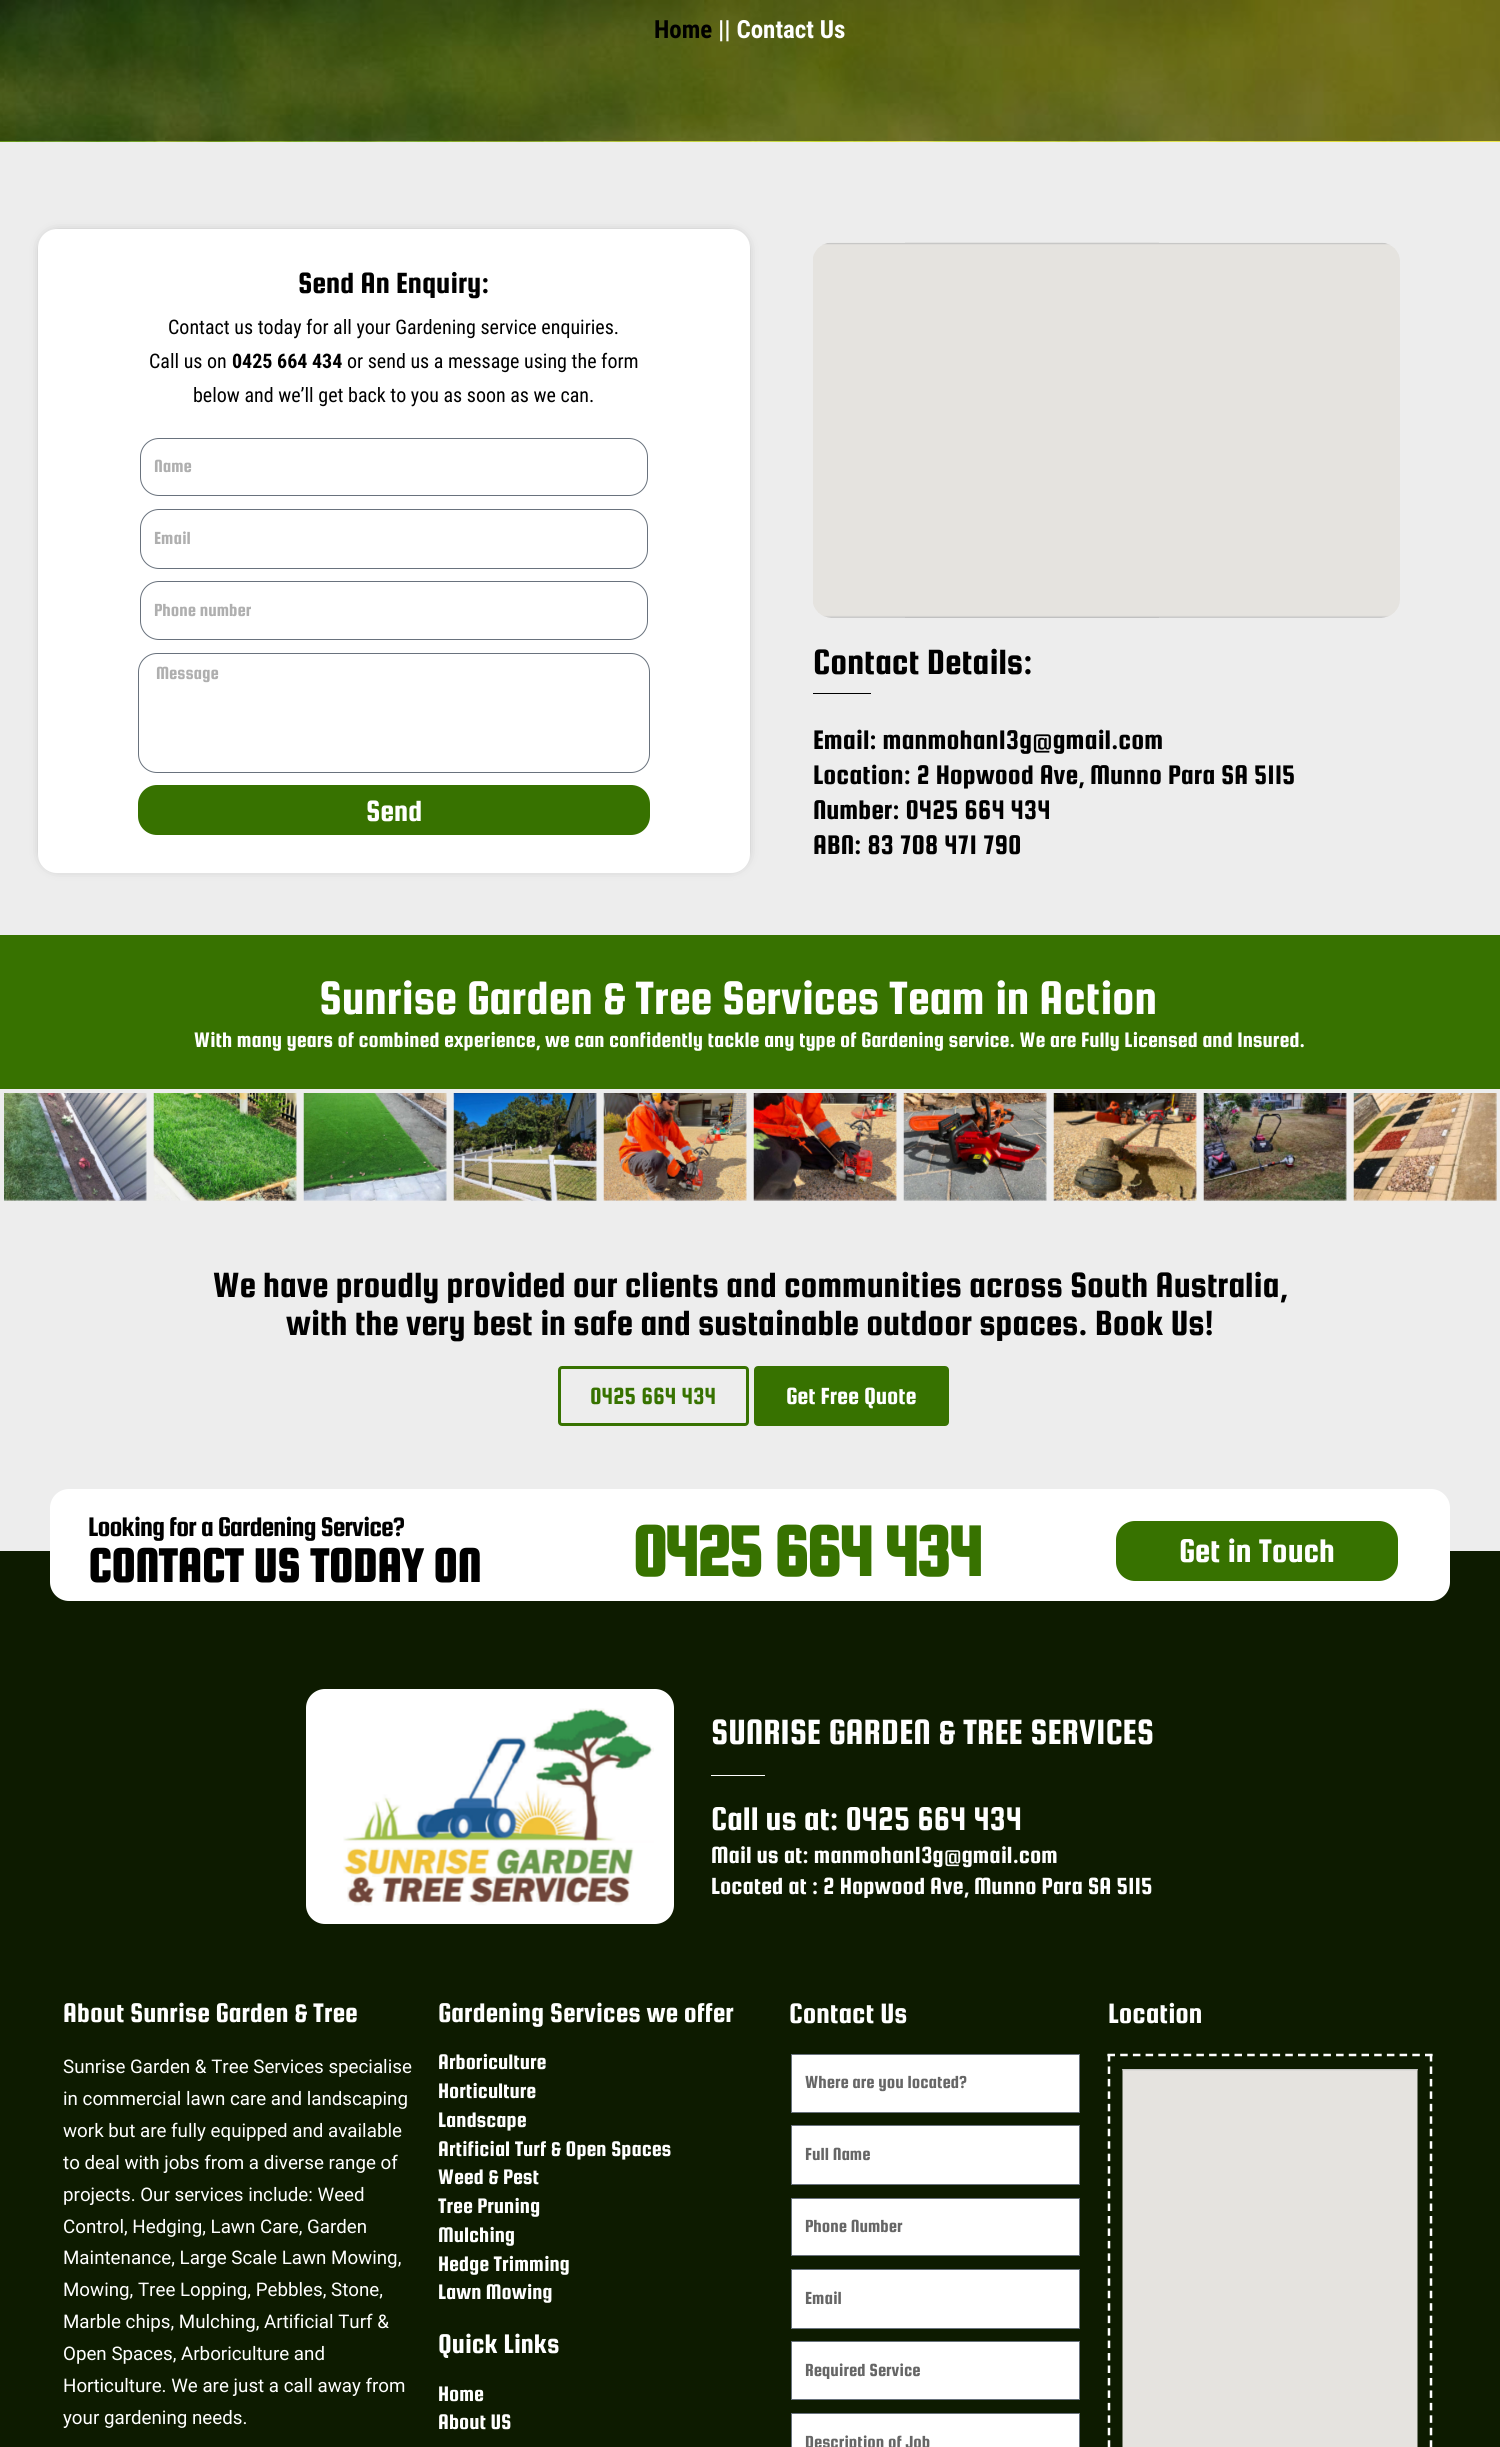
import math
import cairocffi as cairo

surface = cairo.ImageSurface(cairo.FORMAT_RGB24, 1500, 2447)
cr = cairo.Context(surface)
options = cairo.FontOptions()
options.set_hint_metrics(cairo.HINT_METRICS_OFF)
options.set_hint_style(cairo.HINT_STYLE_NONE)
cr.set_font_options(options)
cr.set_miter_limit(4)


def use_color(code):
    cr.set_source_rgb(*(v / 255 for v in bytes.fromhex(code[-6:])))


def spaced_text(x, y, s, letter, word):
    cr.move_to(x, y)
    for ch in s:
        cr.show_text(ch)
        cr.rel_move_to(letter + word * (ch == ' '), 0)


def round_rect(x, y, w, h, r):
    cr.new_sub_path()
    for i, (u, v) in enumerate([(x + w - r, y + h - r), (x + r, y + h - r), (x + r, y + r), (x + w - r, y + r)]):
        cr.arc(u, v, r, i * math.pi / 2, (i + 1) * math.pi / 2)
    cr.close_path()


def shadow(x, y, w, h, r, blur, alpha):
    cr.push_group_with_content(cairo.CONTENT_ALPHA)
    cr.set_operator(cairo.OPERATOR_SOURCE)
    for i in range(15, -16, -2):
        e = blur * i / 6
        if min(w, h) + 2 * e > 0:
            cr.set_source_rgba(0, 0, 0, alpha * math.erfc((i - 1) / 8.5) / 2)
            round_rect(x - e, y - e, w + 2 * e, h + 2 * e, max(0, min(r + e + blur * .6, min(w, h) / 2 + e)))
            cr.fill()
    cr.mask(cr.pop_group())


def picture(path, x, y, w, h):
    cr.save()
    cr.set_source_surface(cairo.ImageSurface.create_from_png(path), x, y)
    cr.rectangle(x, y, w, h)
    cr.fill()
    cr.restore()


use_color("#ededed")
cr.paint()
picture("img1.png", 0, 0, 1500, 142)
cr.select_font_face("Roboto Condensed", cairo.FONT_SLANT_NORMAL, cairo.FONT_WEIGHT_BOLD)
cr.set_font_size(25)
use_color("#000000")
cr.move_to(654, 38)
cr.show_text("Home")
use_color("#ffffff")
cr.move_to(718, 38)
cr.show_text("|| Contact Us")
use_color("#000000")
shadow(44, 235, 700, 631, 13, 6, 0.5)
use_color("#ffffff")
round_rect(38, 229, 712, 644, 19)
cr.fill()
cr.select_font_face("Squada One")
cr.set_font_size(31.25)
use_color("#000000")
cr.move_to(298, 293)
cr.show_text("Send An Enquiry:")
cr.select_font_face("Roboto Condensed")
cr.set_font_size(20)
cr.move_to(168, 334)
cr.show_text("Contact us today for all your Gardening service enquiries.")
cr.move_to(149, 368)
cr.show_text("Call us on")
cr.select_font_face("Roboto Condensed", cairo.FONT_SLANT_NORMAL, cairo.FONT_WEIGHT_BOLD)
cr.move_to(232, 368)
cr.show_text("0425 664 434")
cr.select_font_face("Roboto Condensed")
cr.move_to(347, 368)
cr.show_text("or send us a message using the form")
cr.move_to(193, 402)
cr.show_text("below and we’ll get back to you as soon as we can.")
round_rect(140.5, 438.5, 507, 57, 18.5)
use_color("#69727d")
cr.set_line_width(1)
cr.stroke()
cr.select_font_face("Squada One")
cr.set_font_size(18.75)
use_color("#afafaf")
cr.move_to(154, 472)
cr.show_text("Name")
round_rect(140.5, 509.5, 507, 59, 18.5)
use_color("#69727d")
cr.stroke()
use_color("#afafaf")
cr.move_to(154, 544)
cr.show_text("Email")
round_rect(140.5, 581.5, 507, 58, 18.5)
use_color("#69727d")
cr.stroke()
use_color("#afafaf")
cr.move_to(154, 616)
cr.show_text("Phone number")
round_rect(138.5, 653.5, 511, 119, 18.5)
use_color("#69727d")
cr.stroke()
use_color("#afafaf")
cr.move_to(156, 679)
cr.show_text("Message")
use_color("#377200")
round_rect(138, 785, 512, 50, 19)
cr.fill()
cr.set_font_size(31.25)
use_color("#ffffff")
cr.move_to(366, 821)
cr.show_text("Send")
picture("img2.png", 813, 242, 587, 376)
cr.set_font_size(37.5)
use_color("#000000")
cr.move_to(813, 674)
cr.show_text("Contact Details:")
cr.rectangle(813, 693, 58, 1)
cr.fill()
cr.set_font_size(28.75)
cr.move_to(813, 749)
cr.show_text("Email: manmohan13g@gmail.com")
cr.move_to(813, 784)
cr.show_text("Location: 2 Hopwood Ave, Munno Para SA 5115")
cr.move_to(813, 819)
cr.show_text("Number: 0425 664 434")
cr.move_to(813, 854)
cr.show_text("ABN: 83 708 471 790")
use_color("#377200")
cr.rectangle(0, 935, 1500, 154)
cr.fill()
cr.set_font_size(50)
use_color("#ffffff")
spaced_text(319, 1014, "Sunrise Garden & Tree Services Team in Action", -0.12, 0)
cr.set_font_size(22.5)
cr.move_to(194, 1047)
cr.show_text("With many years of combined experience, we can confidently tackle any type of Gardening service. We are Fully Licensed and Insured.")
picture("img3.png", 4, 1093, 143, 108)
picture("img4.png", 153, 1093, 144, 108)
picture("img5.png", 303, 1093, 144, 108)
picture("img6.png", 453, 1093, 144, 108)
picture("img7.png", 603, 1093, 144, 108)
picture("img8.png", 753, 1093, 144, 108)
picture("img9.png", 903, 1093, 144, 108)
picture("img10.png", 1053, 1093, 144, 108)
picture("img11.png", 1203, 1093, 144, 108)
picture("img12.png", 1353, 1093, 144, 108)
cr.set_font_size(37.5)
use_color("#000000")
spaced_text(213, 1297, "We have proudly provided our clients and communities across South Australia,", -0.12, 0)
spaced_text(286, 1335, "with the very best in safe and sustainable outdoor spaces. Book Us!", -0.12, 0)
round_rect(559.5, 1367.5, 188, 57, 2.5)
use_color("#377200")
cr.set_line_width(3)
cr.stroke()
cr.set_font_size(25)
cr.move_to(590, 1404)
cr.show_text("0425 664 434")
round_rect(755.5, 1367.5, 192, 57, 2.5)
cr.fill_preserve()
cr.stroke()
use_color("#ffffff")
cr.move_to(786, 1404)
cr.show_text("Get Free Quote")
use_color("#0d1b00")
cr.rectangle(0, 1551, 1500, 896)
cr.fill()
use_color("#ffffff")
round_rect(50, 1489, 1400, 112, 19)
cr.fill()
cr.set_font_size(28.75)
use_color("#000000")
spaced_text(88, 1536, "Looking for a Gardening Service?", -0.9, 0)
cr.select_font_face("Squada One", cairo.FONT_SLANT_NORMAL, cairo.FONT_WEIGHT_BOLD)
cr.set_font_size(50)
cr.move_to(88, 1582)
cr.show_text("CONTACT US TODAY ON")
cr.set_font_size(75)
use_color("#377200")
spaced_text(632, 1576, "0425 664 434", -2.5, 0)
round_rect(1116, 1521, 282, 60, 19)
cr.fill()
cr.select_font_face("Squada One")
cr.set_font_size(35)
use_color("#ffffff")
cr.move_to(1179, 1562)
cr.show_text("Get in Touch")
round_rect(306, 1689, 368, 235, 19)
cr.fill()
picture("img13.png", 343, 1708, 311, 198)
cr.set_font_size(37.5)
cr.move_to(711, 1744)
cr.show_text("SUNRISE GARDEN & TREE SERVICES")
cr.rectangle(711, 1775, 54, 1)
cr.fill()
cr.set_font_size(35)
cr.move_to(711, 1830)
cr.show_text("Call us at: 0425 664 434")
cr.set_font_size(25)
cr.move_to(711, 1863)
cr.show_text("Mail us at: manmohan13g@gmail.com")
cr.move_to(711, 1894)
cr.show_text("Located at : 2 Hopwood Ave, Munno Para SA 5115")
cr.set_font_size(28.75)
cr.move_to(63, 2022)
cr.show_text("About Sunrise Garden & Tree")
cr.select_font_face("Roboto")
cr.set_font_size(18.75)
cr.move_to(63, 2073)
cr.show_text("Sunrise Garden & Tree Services specialise")
cr.move_to(63, 2105)
cr.show_text("in commercial lawn care and landscaping")
cr.move_to(63, 2137)
cr.show_text("work but are fully equipped and available")
cr.move_to(63, 2169)
cr.show_text("to deal with jobs from a diverse range of")
cr.move_to(63, 2201)
cr.show_text("projects. Our services include: Weed")
cr.move_to(63, 2233)
cr.show_text("Control, Hedging, Lawn Care, Garden")
cr.move_to(63, 2264)
cr.show_text("Maintenance, Large Scale Lawn Mowing,")
cr.move_to(63, 2296)
cr.show_text("Mowing, Tree Lopping, Pebbles, Stone,")
cr.move_to(63, 2328)
cr.show_text("Marble chips, Mulching, Artificial Turf &")
cr.move_to(63, 2360)
cr.show_text("Open Spaces, Arboriculture and")
cr.move_to(63, 2392)
cr.show_text("Horticulture. We are just a call away from")
cr.move_to(63, 2424)
cr.show_text("your gardening needs.")
cr.select_font_face("Squada One")
cr.set_font_size(28.75)
cr.move_to(438, 2022)
cr.show_text("Gardening Services we offer")
cr.set_font_size(22.5)
cr.move_to(438, 2069)
cr.show_text("Arboriculture")
cr.move_to(438, 2098)
cr.show_text("Horticulture")
cr.move_to(438, 2127)
cr.show_text("Landscape")
cr.move_to(438, 2156)
cr.show_text("Artificial Turf & Open Spaces")
cr.move_to(438, 2184)
cr.show_text("Weed & Pest")
cr.move_to(438, 2213)
cr.show_text("Tree Pruning")
cr.move_to(438, 2242)
cr.show_text("Mulching")
cr.move_to(438, 2271)
cr.show_text("Hedge Trimming")
cr.move_to(438, 2299)
cr.show_text("Lawn Mowing")
cr.set_font_size(28.75)
cr.move_to(438, 2353)
cr.show_text("Quick Links")
cr.set_font_size(22.5)
cr.move_to(438, 2401)
cr.show_text("Home")
cr.move_to(438, 2429)
cr.show_text("About US")
cr.set_font_size(30)
cr.move_to(789, 2023)
cr.show_text("Contact Us")
cr.rectangle(791.5, 2054.5, 288, 58)
cr.fill_preserve()
use_color("#69727d")
cr.set_line_width(1)
cr.stroke()
cr.set_font_size(18.75)
use_color("#666666")
cr.move_to(805, 2088)
cr.show_text("Where are you located?")
use_color("#ffffff")
cr.rectangle(791.5, 2125.5, 288, 59)
cr.fill_preserve()
use_color("#69727d")
cr.stroke()
use_color("#666666")
cr.move_to(805, 2160)
cr.show_text("Full Name")
use_color("#ffffff")
cr.rectangle(791.5, 2198.5, 288, 57)
cr.fill_preserve()
use_color("#69727d")
cr.stroke()
use_color("#666666")
cr.move_to(805, 2232)
cr.show_text("Phone Number")
use_color("#ffffff")
cr.rectangle(791.5, 2269.5, 288, 59)
cr.fill_preserve()
use_color("#69727d")
cr.stroke()
use_color("#666666")
cr.move_to(805, 2304)
cr.show_text("Email")
use_color("#ffffff")
cr.rectangle(791.5, 2341.5, 288, 58)
cr.fill_preserve()
use_color("#69727d")
cr.stroke()
use_color("#666666")
cr.move_to(805, 2376)
cr.show_text("Required Service")
use_color("#ffffff")
cr.rectangle(791.5, 2413.5, 288, 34)
cr.fill_preserve()
use_color("#69727d")
cr.stroke()
use_color("#666666")
cr.move_to(805, 2448)
cr.show_text("Description of Job")
cr.set_font_size(30)
use_color("#ffffff")
cr.move_to(1108, 2023)
cr.show_text("Location")
cr.new_path()
cr.move_to(1107.5, 2055)
cr.line_to(1432.5, 2055)
cr.set_line_width(2.5)
cr.set_dash([7.5, 5.2])
cr.stroke()
cr.new_path()
cr.move_to(1431, 2054)
cr.line_to(1431, 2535)
cr.set_dash([7.5, 4.96])
cr.stroke()
cr.new_path()
cr.move_to(1109, 2054)
cr.line_to(1109, 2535)
cr.stroke()
picture("img14.png", 1122, 2069, 296, 378)
surface.write_to_png("result.png")
